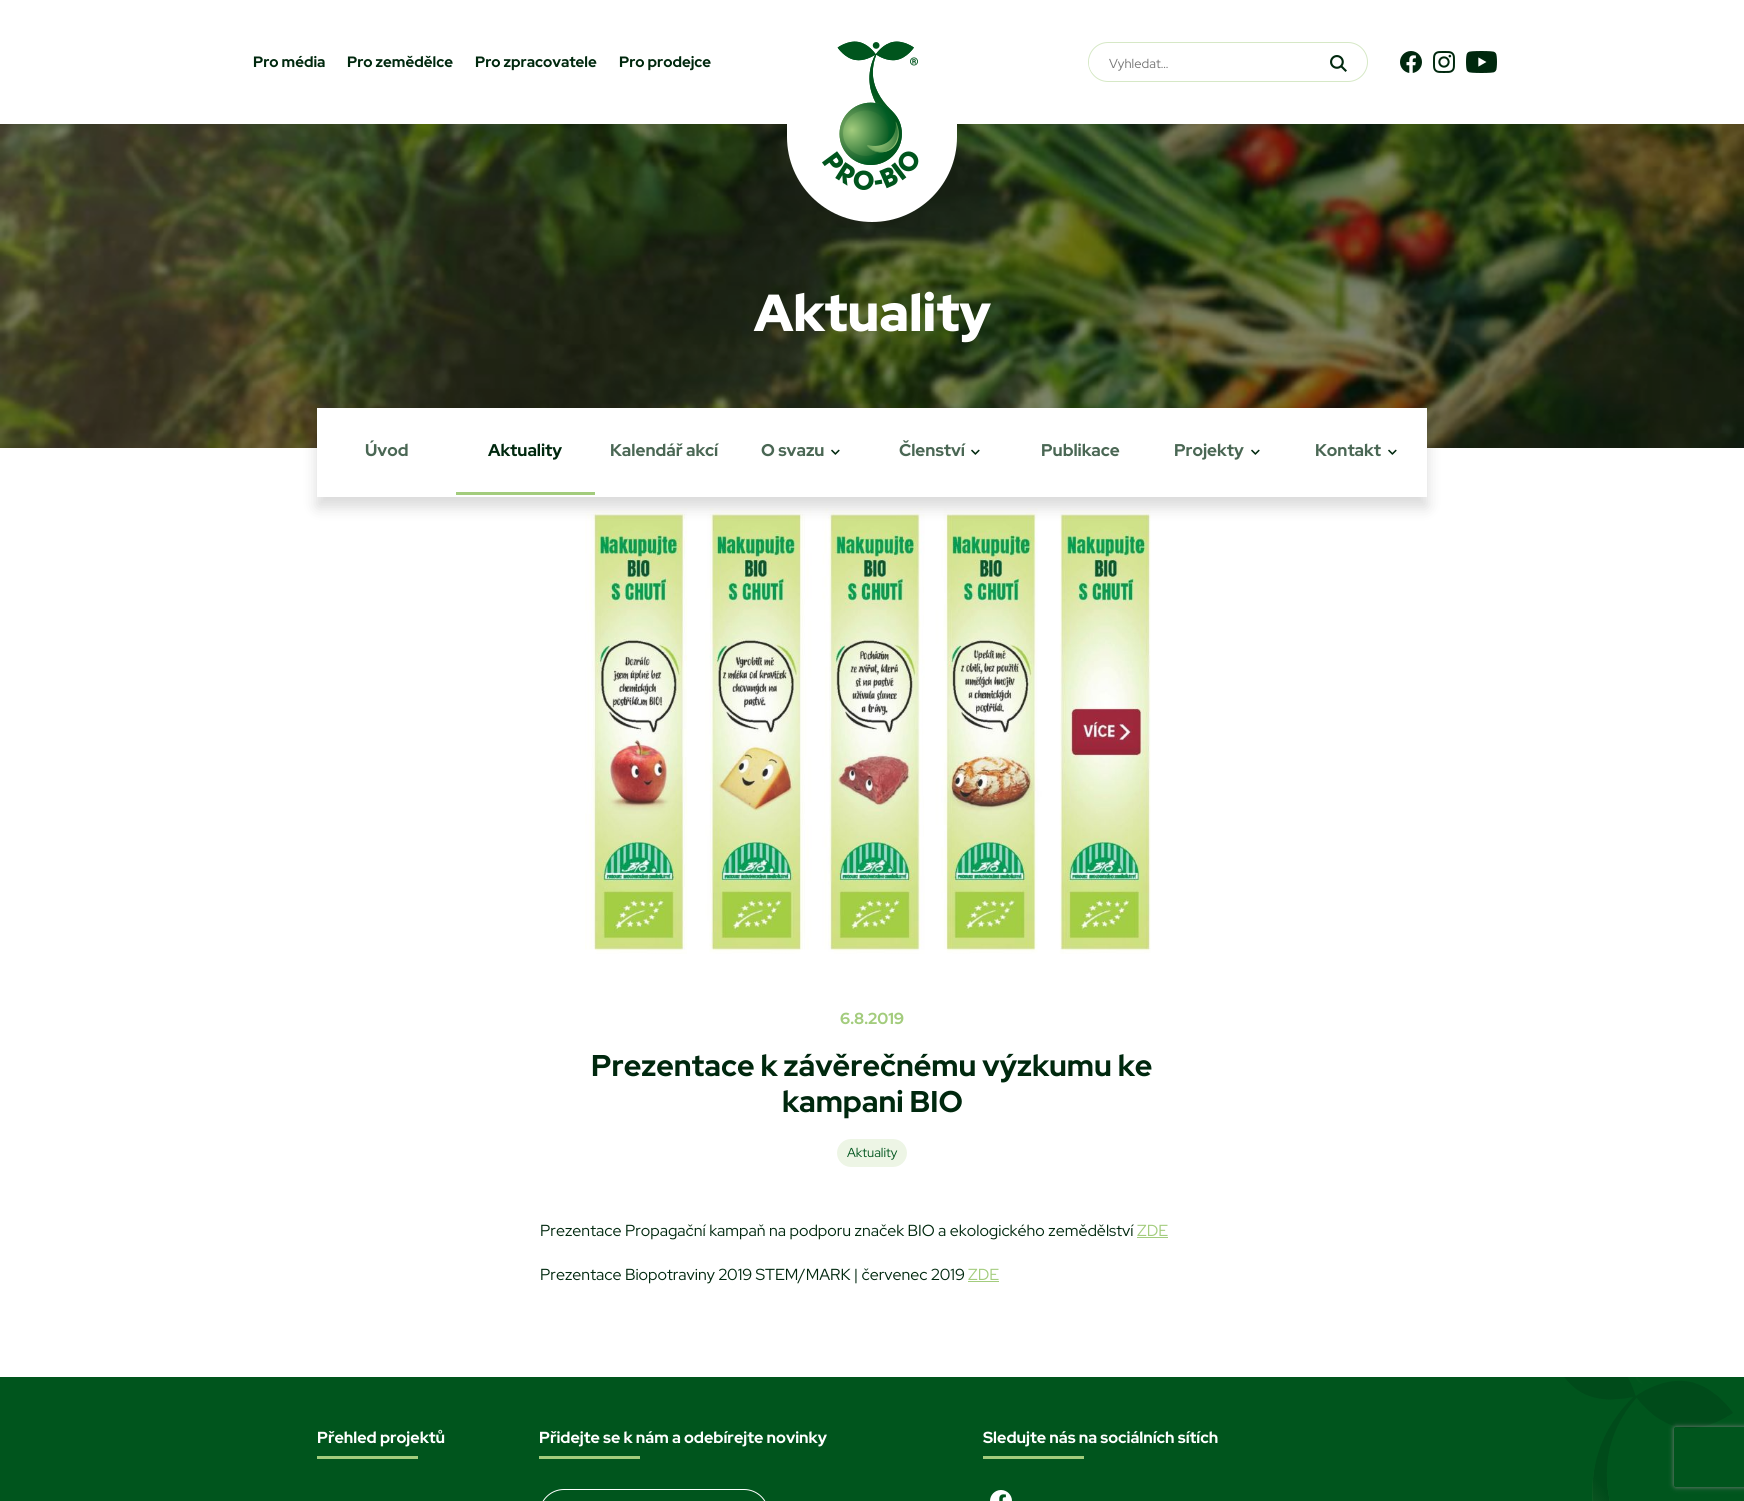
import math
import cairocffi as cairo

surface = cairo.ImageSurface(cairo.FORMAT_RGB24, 1744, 1501)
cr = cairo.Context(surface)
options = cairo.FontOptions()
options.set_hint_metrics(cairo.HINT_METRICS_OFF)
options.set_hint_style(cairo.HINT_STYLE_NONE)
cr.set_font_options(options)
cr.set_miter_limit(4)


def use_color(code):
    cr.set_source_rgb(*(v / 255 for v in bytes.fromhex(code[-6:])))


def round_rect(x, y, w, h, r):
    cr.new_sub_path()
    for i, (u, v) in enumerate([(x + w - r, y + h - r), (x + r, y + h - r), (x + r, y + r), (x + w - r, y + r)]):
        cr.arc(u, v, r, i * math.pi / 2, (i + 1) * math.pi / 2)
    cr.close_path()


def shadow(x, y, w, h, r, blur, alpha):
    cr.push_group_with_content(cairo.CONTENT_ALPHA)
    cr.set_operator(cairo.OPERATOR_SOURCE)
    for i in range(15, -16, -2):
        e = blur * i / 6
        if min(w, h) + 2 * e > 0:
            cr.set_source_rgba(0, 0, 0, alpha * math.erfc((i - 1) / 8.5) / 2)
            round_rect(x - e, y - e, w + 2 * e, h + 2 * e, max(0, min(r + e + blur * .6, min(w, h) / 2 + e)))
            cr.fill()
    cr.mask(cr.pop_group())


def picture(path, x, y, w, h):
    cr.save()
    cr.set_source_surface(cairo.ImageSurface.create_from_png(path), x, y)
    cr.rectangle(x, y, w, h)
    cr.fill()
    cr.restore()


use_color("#ffffff")
cr.paint()
cr.select_font_face("Red Hat Display", cairo.FONT_SLANT_NORMAL, cairo.FONT_WEIGHT_BOLD)
cr.set_font_size(15)
use_color("#00280e")
cr.move_to(253, 67)
cr.show_text("Pro média")
cr.move_to(347, 67)
cr.show_text("Pro zemědělce")
cr.move_to(475, 67)
cr.show_text("Pro zpracovatele")
cr.move_to(619, 67)
cr.show_text("Pro prodejce")
picture("img6.png", 0, 124, 1744, 324)
picture("img1.png", 787, 41, 170, 181)
round_rect(1088.5, 42.5, 279, 39, 19.5)
use_color("#d6e8c6")
cr.set_line_width(1)
cr.stroke()
use_color("#ffffff")
round_rect(1089, 48, 222, 30, 15)
cr.fill()
cr.select_font_face("Red Hat Display")
cr.set_font_size(13)
use_color("#757575")
cr.move_to(1109, 68)
cr.show_text("Vyhledat...")
picture("img2.png", 1330, 55, 17, 17)
picture("img3.png", 1400, 51, 22, 22)
picture("img4.png", 1433, 51, 22, 22)
picture("img5.png", 1466, 51, 31, 22)
cr.select_font_face("Red Hat Display Black")
cr.set_font_size(52)
use_color("#ffffff")
cr.move_to(754, 331)
cr.show_text("Aktuality")
picture("img8.png", 585, 508, 566, 446)
use_color("#000000")
shadow(317, 418, 1110, 89, 0, 7.5, 0.15)
use_color("#ffffff")
cr.rectangle(317, 408, 1110, 89)
cr.fill()
cr.select_font_face("Red Hat Display", cairo.FONT_SLANT_NORMAL, cairo.FONT_WEIGHT_BOLD)
cr.set_font_size(17)
use_color("#4a6754")
cr.move_to(365, 456)
cr.show_text("Úvod")
use_color("#a3cc7d")
cr.rectangle(456, 492, 139, 3)
cr.fill()
use_color("#00280e")
cr.move_to(488, 456)
cr.show_text("Aktuality")
use_color("#4a6754")
cr.move_to(610, 456)
cr.show_text("Kalendář akcí")
cr.move_to(761, 456)
cr.show_text("O svazu")
picture("img7.png", 831, 449, 9, 6)
cr.move_to(899, 456)
cr.show_text("Členství")
picture("img7.png", 971, 449, 9, 6)
cr.move_to(1041, 456)
cr.show_text("Publikace")
cr.move_to(1174, 456)
cr.show_text("Projekty")
picture("img7.png", 1251, 449, 9, 6)
cr.move_to(1315, 456)
cr.show_text("Kontakt")
picture("img7.png", 1388, 449, 9, 6)
cr.set_font_size(16)
use_color("#a3cc7d")
cr.move_to(840, 1024)
cr.show_text("6.8.2019")
cr.set_font_size(30)
use_color("#00280e")
cr.move_to(591, 1076)
cr.show_text("Prezentace k závěrečnému výzkumu ke")
cr.move_to(782, 1112)
cr.show_text("kampani BIO")
use_color("#edf5e5")
round_rect(837, 1139, 70, 28, 14)
cr.fill()
cr.select_font_face("Red Hat Display")
cr.set_font_size(13)
use_color("#00551d")
cr.move_to(847, 1157)
cr.show_text("Aktuality")
cr.set_font_size(16)
use_color("#00280e")
cr.move_to(540, 1236)
cr.show_text("Prezentace Propagační kampaň na podporu značek BIO a ekologického zemědělství")
use_color("#a3cc7d")
cr.move_to(1137, 1236)
cr.show_text("ZDE")
cr.rectangle(1137, 1237, 31, 1)
cr.fill()
use_color("#00280e")
cr.move_to(540, 1280)
cr.show_text("Prezentace Biopotraviny 2019 STEM/MARK | červenec 2019")
use_color("#a3cc7d")
cr.move_to(968, 1280)
cr.show_text("ZDE")
cr.rectangle(968, 1281, 31, 1)
cr.fill()
use_color("#00551d")
cr.rectangle(0, 1377, 1744, 124)
cr.fill()
cr.select_font_face("Red Hat Display", cairo.FONT_SLANT_NORMAL, cairo.FONT_WEIGHT_BOLD)
use_color("#ffffff")
cr.move_to(317, 1443)
cr.show_text("Přehled projektů")
use_color("#a3cc7d")
cr.rectangle(317, 1456, 101, 3)
cr.fill()
use_color("#ffffff")
cr.move_to(539, 1443)
cr.show_text("Přidejte se k nám a odebírejte novinky")
use_color("#a3cc7d")
cr.rectangle(539, 1456, 101, 3)
cr.fill()
round_rect(539.5, 1489.5, 229, 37, 24.5)
use_color("#ffffff")
cr.stroke()
cr.move_to(983, 1443)
cr.show_text("Sledujte nás na sociálních sítích")
use_color("#a3cc7d")
cr.rectangle(983, 1456, 101, 3)
cr.fill()
picture("img9.png", 990, 1490, 22, 11)
picture("img10.png", 1564, 1377, 169, 124)
cr.save()
cr.set_fill_rule(cairo.FILL_RULE_EVEN_ODD)
cr.new_path()
cr.move_to(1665, 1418)
cr.line_to(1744, 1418)
cr.line_to(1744, 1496)
cr.line_to(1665, 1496)
cr.close_path()
cr.move_to(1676, 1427)
cr.line_to(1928, 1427)
cr.curve_to(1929, 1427, 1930, 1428, 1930, 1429)
cr.line_to(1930, 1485)
cr.curve_to(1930, 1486, 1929, 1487, 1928, 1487)
cr.line_to(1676, 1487)
cr.curve_to(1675, 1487, 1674, 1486, 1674, 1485)
cr.line_to(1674, 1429)
cr.curve_to(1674, 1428, 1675, 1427, 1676, 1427)
cr.close_path()
cr.clip()
use_color("#808080")
shadow(1674, 1427, 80, 60, 2, 2.5, 1)
cr.restore()
surface.write_to_png("result.png")
